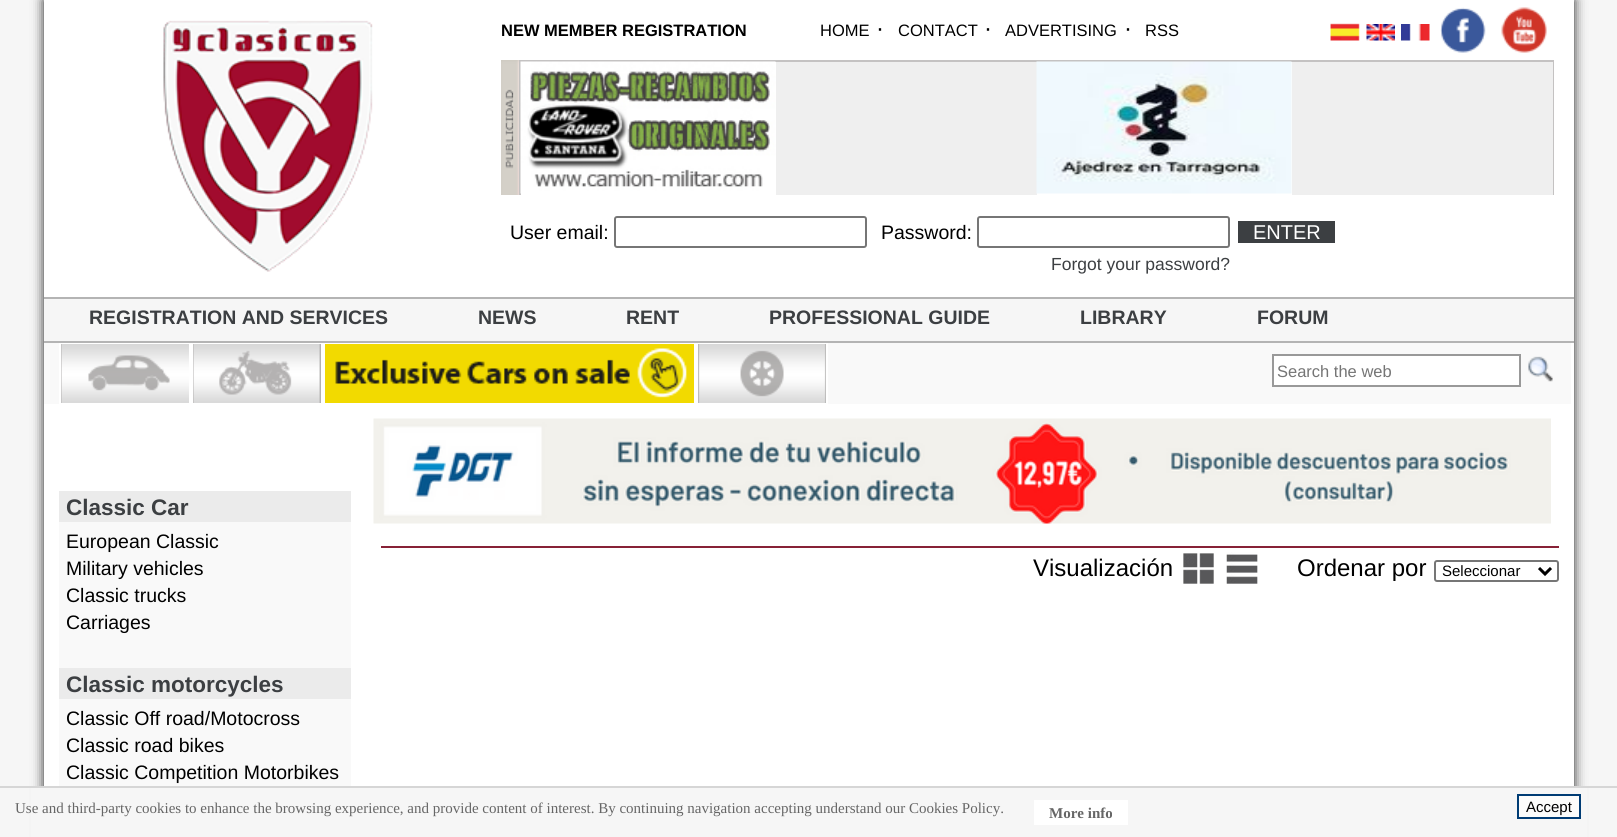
import math
import cairocffi as cairo

surface = cairo.ImageSurface(cairo.FORMAT_RGB24, 1617, 837)
cr = cairo.Context(surface)
options = cairo.FontOptions()
options.set_hint_metrics(cairo.HINT_METRICS_OFF)
options.set_hint_style(cairo.HINT_STYLE_NONE)
cr.set_font_options(options)
cr.set_miter_limit(4)


def use_color(code):
    cr.set_source_rgb(*(v / 255 for v in bytes.fromhex(code[-6:])))


def round_rect(x, y, w, h, r):
    cr.new_sub_path()
    for i, (u, v) in enumerate([(x + w - r, y + h - r), (x + r, y + h - r), (x + r, y + r), (x + w - r, y + r)]):
        cr.arc(u, v, r, i * math.pi / 2, (i + 1) * math.pi / 2)
    cr.close_path()


def shadow(x, y, w, h, r, blur, alpha):
    cr.push_group_with_content(cairo.CONTENT_ALPHA)
    cr.set_operator(cairo.OPERATOR_SOURCE)
    for i in range(15, -16, -2):
        e = blur * i / 6
        if min(w, h) + 2 * e > 0:
            cr.set_source_rgba(0, 0, 0, alpha * math.erfc((i - 1) / 8.5) / 2)
            round_rect(x - e, y - e, w + 2 * e, h + 2 * e, max(0, min(r + e + blur * .6, min(w, h) / 2 + e)))
            cr.fill()
    cr.mask(cr.pop_group())


def picture(path, x, y, w, h):
    cr.save()
    cr.set_source_surface(cairo.ImageSurface.create_from_png(path), x, y)
    cr.rectangle(x, y, w, h)
    cr.fill()
    cr.restore()


use_color("#f6f6f6")
cr.paint()
use_color("#222222")
shadow(44, 0, 1530, 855, 0, 6, 1)
use_color("#ffffff")
cr.rectangle(44, 0, 1530, 786)
cr.fill()
picture("img1.png", 163, 20, 210, 252)
cr.select_font_face("Liberation Sans", cairo.FONT_SLANT_NORMAL, cairo.FONT_WEIGHT_BOLD)
cr.set_font_size(16.5)
use_color("#000000")
cr.move_to(501, 36)
cr.show_text("NEW MEMBER REGISTRATION")
cr.select_font_face("Liberation Sans")
cr.move_to(820, 36)
cr.show_text("HOME")
cr.set_font_size(24)
cr.move_to(876, 36)
cr.show_text("·")
cr.set_font_size(16.5)
cr.move_to(898, 36)
cr.show_text("CONTACT")
cr.set_font_size(24)
cr.move_to(984, 36)
cr.show_text("·")
cr.set_font_size(16.5)
cr.move_to(1005, 36)
cr.show_text("ADVERTISING")
cr.set_font_size(24)
cr.move_to(1124, 36)
cr.show_text("·")
cr.set_font_size(16.5)
cr.move_to(1145, 36)
cr.show_text("RSS")
picture("img2.png", 1330, 23, 30, 18)
picture("img3.png", 1366, 24, 29, 17)
picture("img4.png", 1401, 24, 29, 17)
picture("img5.png", 1440, 7, 46, 46)
picture("img6.png", 1501, 7, 46, 46)
picture("img7.png", 501, 60, 18, 135)
cr.save()
cr.rectangle(519, 60, 1035, 135)
cr.clip()
cr.rectangle(520, 61, 1033, 136)
use_color("#c4c2c2")
cr.stroke()
cr.restore()
use_color("#efefef")
cr.rectangle(776, 62, 261, 133)
cr.fill()
picture("img8.png", 520, 61, 256, 133)
cr.rectangle(1292, 62, 261, 133)
cr.fill()
picture("img9.png", 1036, 61, 256, 133)
cr.set_font_size(19.5)
use_color("#000000")
cr.move_to(510, 239)
cr.show_text("User email:")
round_rect(615, 217, 251, 30, 2)
use_color("#767676")
cr.stroke()
use_color("#000000")
cr.move_to(881, 239)
cr.show_text("Password:")
round_rect(978, 217, 251, 30, 2)
use_color("#767676")
cr.stroke()
cr.set_font_size(17.5)
use_color("#3c3f42")
cr.move_to(1051, 270)
cr.show_text("Forgot your password?")
cr.rectangle(1238, 221, 97, 22)
cr.fill()
cr.set_font_size(20)
use_color("#ffffff")
cr.move_to(1253, 239)
cr.show_text("ENTER")
use_color("#f6f6f6")
cr.rectangle(44, 299, 1530, 42)
cr.fill()
use_color("#b4b4b4")
cr.rectangle(44, 297, 1530, 2)
cr.fill()
use_color("#f9f9f9")
cr.rectangle(44, 343, 1527, 61)
cr.fill()
picture("img10.png", 61, 344, 128, 59)
cr.rectangle(60, 343, 130, 61)
use_color("#ffffff")
cr.stroke()
picture("img11.png", 193, 344, 128, 59)
cr.rectangle(192, 343, 130, 61)
cr.stroke()
picture("img12.png", 325, 344, 369, 59)
cr.rectangle(324, 343, 371, 61)
cr.stroke()
picture("img13.png", 698, 344, 128, 59)
cr.rectangle(697, 343, 130, 61)
cr.stroke()
use_color("#b4b4b4")
cr.rectangle(44, 341, 1530, 2)
cr.fill()
cr.select_font_face("Liberation Sans", cairo.FONT_SLANT_NORMAL, cairo.FONT_WEIGHT_BOLD)
cr.set_font_size(19.5)
use_color("#3c3f42")
cr.move_to(89, 324)
cr.show_text("REGISTRATION AND SERVICES")
cr.move_to(478, 324)
cr.show_text("NEWS")
cr.move_to(626, 324)
cr.show_text("RENT")
cr.move_to(769, 324)
cr.show_text("PROFESSIONAL GUIDE")
cr.move_to(1080, 324)
cr.show_text("LIBRARY")
cr.move_to(1257, 324)
cr.show_text("FORUM")
use_color("#ffffff")
cr.rectangle(1273, 355, 247, 31)
cr.fill_preserve()
use_color("#999999")
cr.stroke()
cr.select_font_face("Liberation Sans")
cr.set_font_size(16.5)
use_color("#757575")
cr.move_to(1277, 377)
cr.show_text("Search the web")
picture("img14.png", 1528, 356, 25, 26)
picture("img15.png", 373, 418, 1178, 106)
use_color("#f9f9f9")
cr.rectangle(59, 522, 292, 264)
cr.fill()
use_color("#ebebeb")
cr.rectangle(59, 491, 292, 31)
cr.fill()
cr.select_font_face("Liberation Sans", cairo.FONT_SLANT_NORMAL, cairo.FONT_WEIGHT_BOLD)
cr.set_font_size(22.5)
use_color("#3c3f42")
cr.move_to(66, 515)
cr.show_text("Classic Car")
cr.select_font_face("Liberation Sans")
cr.set_font_size(19.5)
use_color("#000000")
cr.move_to(66, 548)
cr.show_text("European Classic")
cr.move_to(66, 575)
cr.show_text("Military vehicles")
cr.move_to(66, 602)
cr.show_text("Classic trucks")
cr.move_to(66, 629)
cr.show_text("Carriages")
use_color("#ebebeb")
cr.rectangle(59, 668, 292, 31)
cr.fill()
cr.select_font_face("Liberation Sans", cairo.FONT_SLANT_NORMAL, cairo.FONT_WEIGHT_BOLD)
cr.set_font_size(22.5)
use_color("#3c3f42")
cr.move_to(66, 692)
cr.show_text("Classic motorcycles")
cr.select_font_face("Liberation Sans")
cr.set_font_size(19.5)
use_color("#000000")
cr.move_to(66, 725)
cr.show_text("Classic Off road/Motocross")
cr.move_to(66, 752)
cr.show_text("Classic road bikes")
cr.move_to(66, 779)
cr.show_text("Classic Competition Motorbikes")
use_color("#872136")
cr.rectangle(381, 546, 1178, 2)
cr.fill()
cr.set_font_size(24)
use_color("#000000")
cr.move_to(1033, 576)
cr.show_text("Visualización")
picture("img16.png", 1183, 553, 31, 31)
picture("img17.png", 1226, 552, 32, 32)
cr.move_to(1297, 576)
cr.show_text("Ordenar por")
round_rect(1435, 561, 123, 20, 2)
use_color("#767676")
cr.stroke()
cr.new_path()
cr.move_to(1539, 568)
cr.line_to(1545, 574)
cr.line_to(1551, 568)
use_color("#000000")
cr.set_line_width(3)
cr.stroke()
cr.set_font_size(15)
cr.move_to(1442, 576)
cr.show_text("Seleccionar")
use_color("#f6f6f6")
cr.rectangle(31, 788, 1556, 49)
cr.fill()
use_color("#d6d6d6")
cr.rectangle(0, 786, 1617, 2)
cr.fill()
cr.select_font_face("Liberation Serif")
use_color("#666666")
cr.move_to(15, 813)
cr.show_text("Use and third-party cookies to enhance the browsing experience, and provide content of interest. By continuing navigation accepting understand our Cookies Policy.")
use_color("#ffffff")
cr.rectangle(1034, 800, 94, 25)
cr.fill()
cr.select_font_face("Liberation Serif", cairo.FONT_SLANT_NORMAL, cairo.FONT_WEIGHT_BOLD)
use_color("#666666")
cr.move_to(1049, 818)
cr.show_text("More info")
use_color("#fcfcfb")
cr.rectangle(1518, 795, 62, 23)
cr.fill_preserve()
use_color("#003c74")
cr.set_line_width(2)
cr.stroke()
cr.select_font_face("Liberation Sans")
use_color("#000000")
cr.move_to(1526, 812)
cr.show_text("Accept")
surface.write_to_png("result.png")
